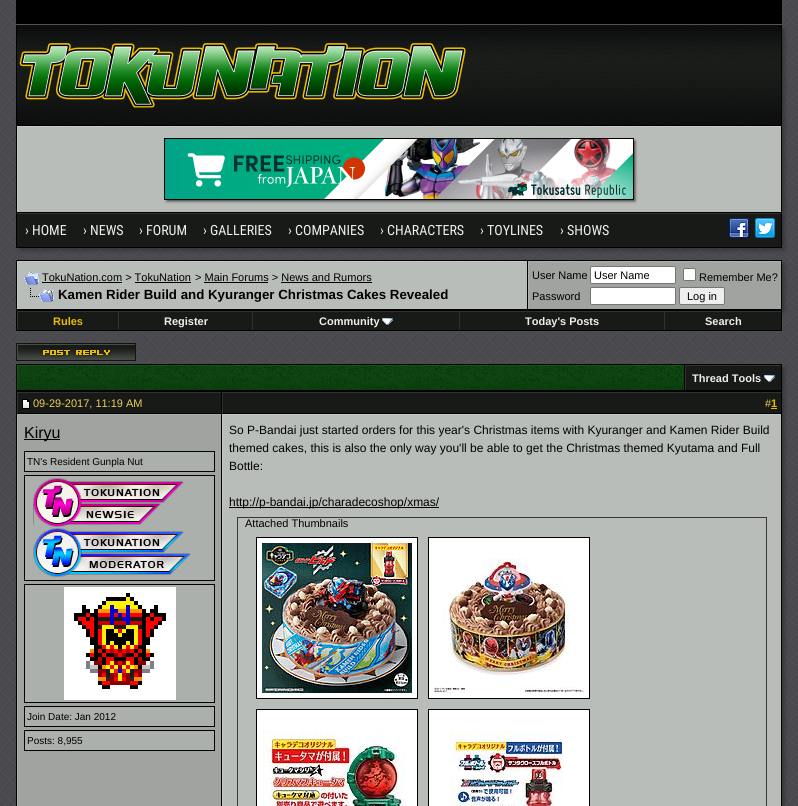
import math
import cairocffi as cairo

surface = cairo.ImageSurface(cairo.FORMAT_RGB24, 798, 806)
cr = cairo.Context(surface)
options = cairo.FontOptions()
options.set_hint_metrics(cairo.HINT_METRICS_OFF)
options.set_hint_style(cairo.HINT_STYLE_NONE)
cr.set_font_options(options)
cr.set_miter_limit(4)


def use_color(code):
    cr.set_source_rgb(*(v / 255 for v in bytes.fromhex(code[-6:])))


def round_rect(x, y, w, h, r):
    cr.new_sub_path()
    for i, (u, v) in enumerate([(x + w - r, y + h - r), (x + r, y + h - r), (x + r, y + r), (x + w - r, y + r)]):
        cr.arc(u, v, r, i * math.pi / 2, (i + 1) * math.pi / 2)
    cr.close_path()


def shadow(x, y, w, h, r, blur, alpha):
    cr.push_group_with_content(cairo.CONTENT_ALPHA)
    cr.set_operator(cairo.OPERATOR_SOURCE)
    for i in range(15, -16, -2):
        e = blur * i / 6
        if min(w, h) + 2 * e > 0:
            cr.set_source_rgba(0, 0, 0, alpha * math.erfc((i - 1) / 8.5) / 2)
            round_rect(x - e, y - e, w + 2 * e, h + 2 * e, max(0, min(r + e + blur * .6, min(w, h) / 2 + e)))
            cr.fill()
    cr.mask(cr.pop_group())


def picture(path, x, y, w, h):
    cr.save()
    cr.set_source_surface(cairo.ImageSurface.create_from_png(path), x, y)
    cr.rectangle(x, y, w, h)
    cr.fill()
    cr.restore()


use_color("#ffffff")
cr.paint()
picture("img1.png", 0, 0, 798, 806)
use_color("#000000")
cr.rectangle(16, 0, 766, 24)
cr.fill()
use_color("#545454")
cr.rectangle(16, 24, 766, 1)
cr.fill()
use_color("#323236")
shadow(20, 29, 764, 185, 0, 2.5, 1)
picture("img2.png", 17, 25, 764, 100)
use_color("#000000")
cr.rectangle(781, 25, 1, 187)
cr.fill()
cr.rectangle(16, 25, 1, 187)
cr.fill()
picture("img3.png", 18, 41, 451, 68)
use_color("#b9bdb9")
cr.rectangle(18, 127, 763, 85)
cr.fill()
cr.save()
cr.rectangle(17, 126, 764, 86)
cr.clip()
use_color("#c5c9c6")
cr.set_fill_rule(cairo.FILL_RULE_EVEN_ODD)
cr.new_path()
cr.move_to(-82, 27)
cr.line_to(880, 27)
cr.line_to(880, 311)
cr.line_to(-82, 311)
cr.close_path()
cr.move_to(18, 127)
cr.line_to(782, 127)
cr.line_to(782, 213)
cr.line_to(18, 213)
cr.close_path()
cr.fill()
cr.restore()
use_color("#000000")
cr.rectangle(17, 125, 764, 1)
cr.fill()
use_color("#333333")
shadow(167, 141, 468, 60, 0, 1.5, 1)
cr.rectangle(164.5, 138.5, 469, 61)
use_color("#000000")
cr.set_line_width(1)
cr.stroke()
picture("img4.png", 165, 139, 468, 60)
use_color("#323236")
shadow(20, 216, 764, 34, 0, 2.5, 1)
use_color("#181a18")
cr.rectangle(17, 214, 764, 33)
cr.fill()
use_color("#2f332f")
cr.rectangle(17, 213, 764, 1)
cr.fill()
cr.rectangle(16.5, 212.5, 765, 35)
use_color("#000000")
cr.stroke()
cr.select_font_face("Roboto Condensed")
cr.set_font_size(14)
use_color("#eeeeee")
cr.move_to(25, 235)
cr.show_text("› HOME")
cr.move_to(83, 235)
cr.show_text("› NEWS")
cr.move_to(139, 235)
cr.show_text("› FORUM")
cr.move_to(203, 235)
cr.show_text("› GALLERIES")
cr.move_to(288, 235)
cr.show_text("› COMPANIES")
cr.move_to(380, 235)
cr.show_text("› CHARACTERS")
cr.move_to(480, 235)
cr.show_text("› TOYLINES")
cr.move_to(560, 235)
cr.show_text("› SHOWS")
picture("img5.png", 729, 218, 20, 20)
picture("img6.png", 755, 218, 20, 20)
use_color("#323236")
shadow(20, 264, 764, 48, 0, 2.5, 1)
use_color("#000000")
cr.rectangle(16, 260, 766, 71)
cr.fill()
use_color("#b9bdb9")
cr.rectangle(18, 262, 509, 47)
cr.fill()
use_color("#c5c9c6")
cr.rectangle(17, 261, 510, 1)
cr.fill()
cr.rectangle(17, 261, 1, 48)
cr.fill()
picture("img7.png", 24, 272, 15, 13)
cr.select_font_face("Liberation Sans")
cr.set_font_size(11)
use_color("#000000")
cr.move_to(42, 281)
cr.show_text("TokuNation.com > TokuNation")
cr.rectangle(42, 282, 80, 1)
cr.fill()
cr.rectangle(135, 282, 56, 1)
cr.fill()
cr.move_to(195, 281)
cr.show_text("> Main Forums > News and Rumors")
cr.rectangle(204, 282, 64, 1)
cr.fill()
cr.rectangle(281, 282, 91, 1)
cr.fill()
picture("img8.png", 30, 288, 24, 14)
cr.select_font_face("Liberation Sans", cairo.FONT_SLANT_NORMAL, cairo.FONT_WEIGHT_BOLD)
cr.set_font_size(13.3)
cr.move_to(58, 299)
cr.show_text("Kamen Rider Build and Kyuranger Christmas Cakes Revealed")
use_color("#a0a3a0")
cr.rectangle(529, 262, 252, 47)
cr.fill()
use_color("#acb0ad")
cr.rectangle(528, 261, 253, 1)
cr.fill()
cr.rectangle(528, 261, 1, 48)
cr.fill()
cr.select_font_face("Liberation Sans")
cr.set_font_size(11)
use_color("#000000")
cr.move_to(532, 279)
cr.show_text("User Name")
use_color("#ffffff")
round_rect(590.5, 266.5, 85, 17, 1.5)
cr.fill_preserve()
use_color("#767676")
cr.stroke()
use_color("#000000")
cr.move_to(594, 279)
cr.show_text("User Name")
use_color("#ffffff")
round_rect(683.5, 268.5, 12, 12, 1.5)
cr.fill_preserve()
use_color("#767676")
cr.stroke()
use_color("#000000")
cr.move_to(699, 281)
cr.show_text("Remember Me?")
cr.move_to(532, 300)
cr.show_text("Password")
use_color("#ffffff")
round_rect(590.5, 287.5, 85, 17, 1.5)
cr.fill_preserve()
use_color("#767676")
cr.stroke()
use_color("#efefef")
round_rect(679.5, 287.5, 45, 17, 1.5)
cr.fill_preserve()
use_color("#767676")
cr.stroke()
use_color("#000000")
cr.move_to(687, 300)
cr.show_text("Log in")
use_color("#181a18")
cr.rectangle(18, 312, 100, 18)
cr.fill()
use_color("#2f332f")
cr.rectangle(17, 311, 764, 1)
cr.fill()
cr.rectangle(17, 311, 1, 19)
cr.fill()
cr.select_font_face("Liberation Sans", cairo.FONT_SLANT_NORMAL, cairo.FONT_WEIGHT_BOLD)
use_color("#ebbc00")
cr.move_to(53, 325)
cr.show_text("Rules")
use_color("#181a18")
cr.rectangle(119, 312, 133, 18)
cr.fill()
use_color("#2f332f")
cr.rectangle(118, 311, 1, 19)
cr.fill()
use_color("#eeeeee")
cr.move_to(164, 325)
cr.show_text("Register")
use_color("#181a18")
cr.rectangle(253, 312, 206, 18)
cr.fill()
use_color("#2f332f")
cr.rectangle(252, 311, 1, 19)
cr.fill()
use_color("#eeeeee")
cr.move_to(319, 325)
cr.show_text("Community")
picture("img9.png", 382, 318, 11, 7)
use_color("#181a18")
cr.rectangle(460, 312, 204, 18)
cr.fill()
use_color("#2f332f")
cr.rectangle(459, 311, 1, 19)
cr.fill()
use_color("#eeeeee")
cr.move_to(525, 325)
cr.show_text("Today's Posts")
use_color("#181a18")
cr.rectangle(665, 312, 116, 18)
cr.fill()
use_color("#2f332f")
cr.rectangle(664, 311, 1, 19)
cr.fill()
use_color("#eeeeee")
cr.move_to(705, 325)
cr.show_text("Search")
use_color("#323236")
shadow(20, 368, 764, 25, 0, 2.5, 1)
picture("img10.png", 16, 343, 120, 18)
use_color("#000000")
cr.rectangle(16, 364, 766, 27)
cr.fill()
picture("img11.png", 18, 366, 666, 24)
use_color("#115414")
cr.rectangle(17, 365, 667, 1)
cr.fill()
cr.rectangle(17, 365, 1, 25)
cr.fill()
use_color("#181a18")
cr.rectangle(686, 366, 95, 24)
cr.fill()
use_color("#2f332f")
cr.rectangle(685, 365, 96, 1)
cr.fill()
cr.rectangle(685, 365, 1, 25)
cr.fill()
use_color("#eeeeee")
cr.move_to(692, 382)
cr.show_text("Thread Tools")
picture("img9.png", 764, 375, 11, 7)
use_color("#323236")
shadow(20, 395, 764, 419, 0, 2.5, 1)
use_color("#000000")
cr.rectangle(16, 391, 766, 415)
cr.fill()
use_color("#181a18")
cr.rectangle(18, 393, 203, 20)
cr.fill()
use_color("#2f332f")
cr.rectangle(17, 392, 204, 1)
cr.fill()
cr.rectangle(17, 392, 1, 21)
cr.fill()
picture("img12.png", 22, 399, 8, 10)
cr.select_font_face("Liberation Sans")
use_color("#ebce5b")
cr.move_to(33, 407)
cr.show_text("09-29-2017, 11:19 AM")
use_color("#181a18")
cr.rectangle(223, 393, 558, 20)
cr.fill()
use_color("#2f332f")
cr.rectangle(222, 392, 559, 1)
cr.fill()
cr.rectangle(222, 392, 1, 21)
cr.fill()
use_color("#ebce5b")
cr.move_to(765, 407)
cr.show_text("#")
cr.select_font_face("Liberation Sans", cairo.FONT_SLANT_NORMAL, cairo.FONT_WEIGHT_BOLD)
use_color("#ebbc00")
cr.move_to(771, 407)
cr.show_text("1")
cr.rectangle(771, 408, 6, 1)
cr.fill()
use_color("#a0a3a0")
cr.rectangle(18, 415, 203, 391)
cr.fill()
use_color("#acb0ad")
cr.rectangle(17, 414, 204, 1)
cr.fill()
cr.rectangle(17, 414, 1, 392)
cr.fill()
use_color("#000000")
cr.rectangle(24, 439, 36, 1)
cr.fill()
cr.select_font_face("Liberation Sans")
cr.set_font_size(16)
cr.move_to(24, 438)
cr.show_text("Kiryu")
use_color("#acb0ac")
cr.rectangle(24.5, 451.5, 190, 20)
cr.fill_preserve()
use_color("#000000")
cr.stroke()
cr.set_font_size(10)
cr.move_to(27, 465)
cr.show_text("TN's Resident Gunpla Nut")
use_color("#acb0ac")
cr.rectangle(24.5, 475.5, 190, 105)
cr.fill_preserve()
use_color("#000000")
cr.stroke()
picture("img13.png", 33, 478, 151, 49)
picture("img14.png", 33, 528, 158, 49)
use_color("#acb0ac")
cr.rectangle(24.5, 584.5, 190, 118)
cr.fill_preserve()
use_color("#000000")
cr.stroke()
picture("img15.png", 64, 587, 112, 113)
use_color("#acb0ac")
cr.rectangle(24.5, 706.5, 190, 20)
cr.fill_preserve()
use_color("#000000")
cr.stroke()
cr.move_to(27, 720)
cr.show_text("Join Date: Jan 2012")
use_color("#acb0ac")
cr.rectangle(24.5, 730.5, 190, 20)
cr.fill_preserve()
use_color("#000000")
cr.stroke()
cr.move_to(27, 744)
cr.show_text("Posts: 8,955")
use_color("#b9bdb9")
cr.rectangle(223, 415, 558, 391)
cr.fill()
use_color("#c5c9c6")
cr.rectangle(222, 414, 559, 1)
cr.fill()
cr.rectangle(222, 414, 1, 392)
cr.fill()
cr.set_font_size(12)
use_color("#000000")
cr.move_to(229, 434)
cr.show_text("So P-Bandai just started orders for this year's Christmas items with Kyuranger and Kamen Rider Build")
cr.move_to(229, 452)
cr.show_text("themed cakes, this is also the only way you'll be able to get the Christmas themed Kyutama and Full")
cr.move_to(229, 470)
cr.show_text("Bottle:")
cr.rectangle(229, 507, 210, 1)
cr.fill()
cr.move_to(229, 506)
cr.show_text("http://p-bandai.jp/charadecoshop/xmas/")
cr.rectangle(237.5, 517.5, 529, 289)
use_color("#3b3737")
cr.stroke()
cr.set_font_size(11)
use_color("#000000")
cr.move_to(245, 527)
cr.show_text("Attached Thumbnails")
use_color("#ffffff")
cr.rectangle(256.5, 537.5, 161, 161)
cr.fill_preserve()
use_color("#000000")
cr.stroke()
use_color("#ffffff")
cr.rectangle(428.5, 537.5, 161, 161)
cr.fill_preserve()
use_color("#000000")
cr.stroke()
picture("img16.png", 262, 543, 150, 150)
picture("img17.png", 434, 558, 150, 135)
use_color("#ffffff")
cr.rectangle(256.5, 709.5, 161, 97)
cr.fill_preserve()
use_color("#000000")
cr.stroke()
use_color("#ffffff")
cr.rectangle(428.5, 709.5, 161, 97)
cr.fill_preserve()
use_color("#000000")
cr.stroke()
picture("img18.png", 262, 730, 144, 76)
picture("img19.png", 449, 730, 114, 76)
surface.write_to_png("result.png")
